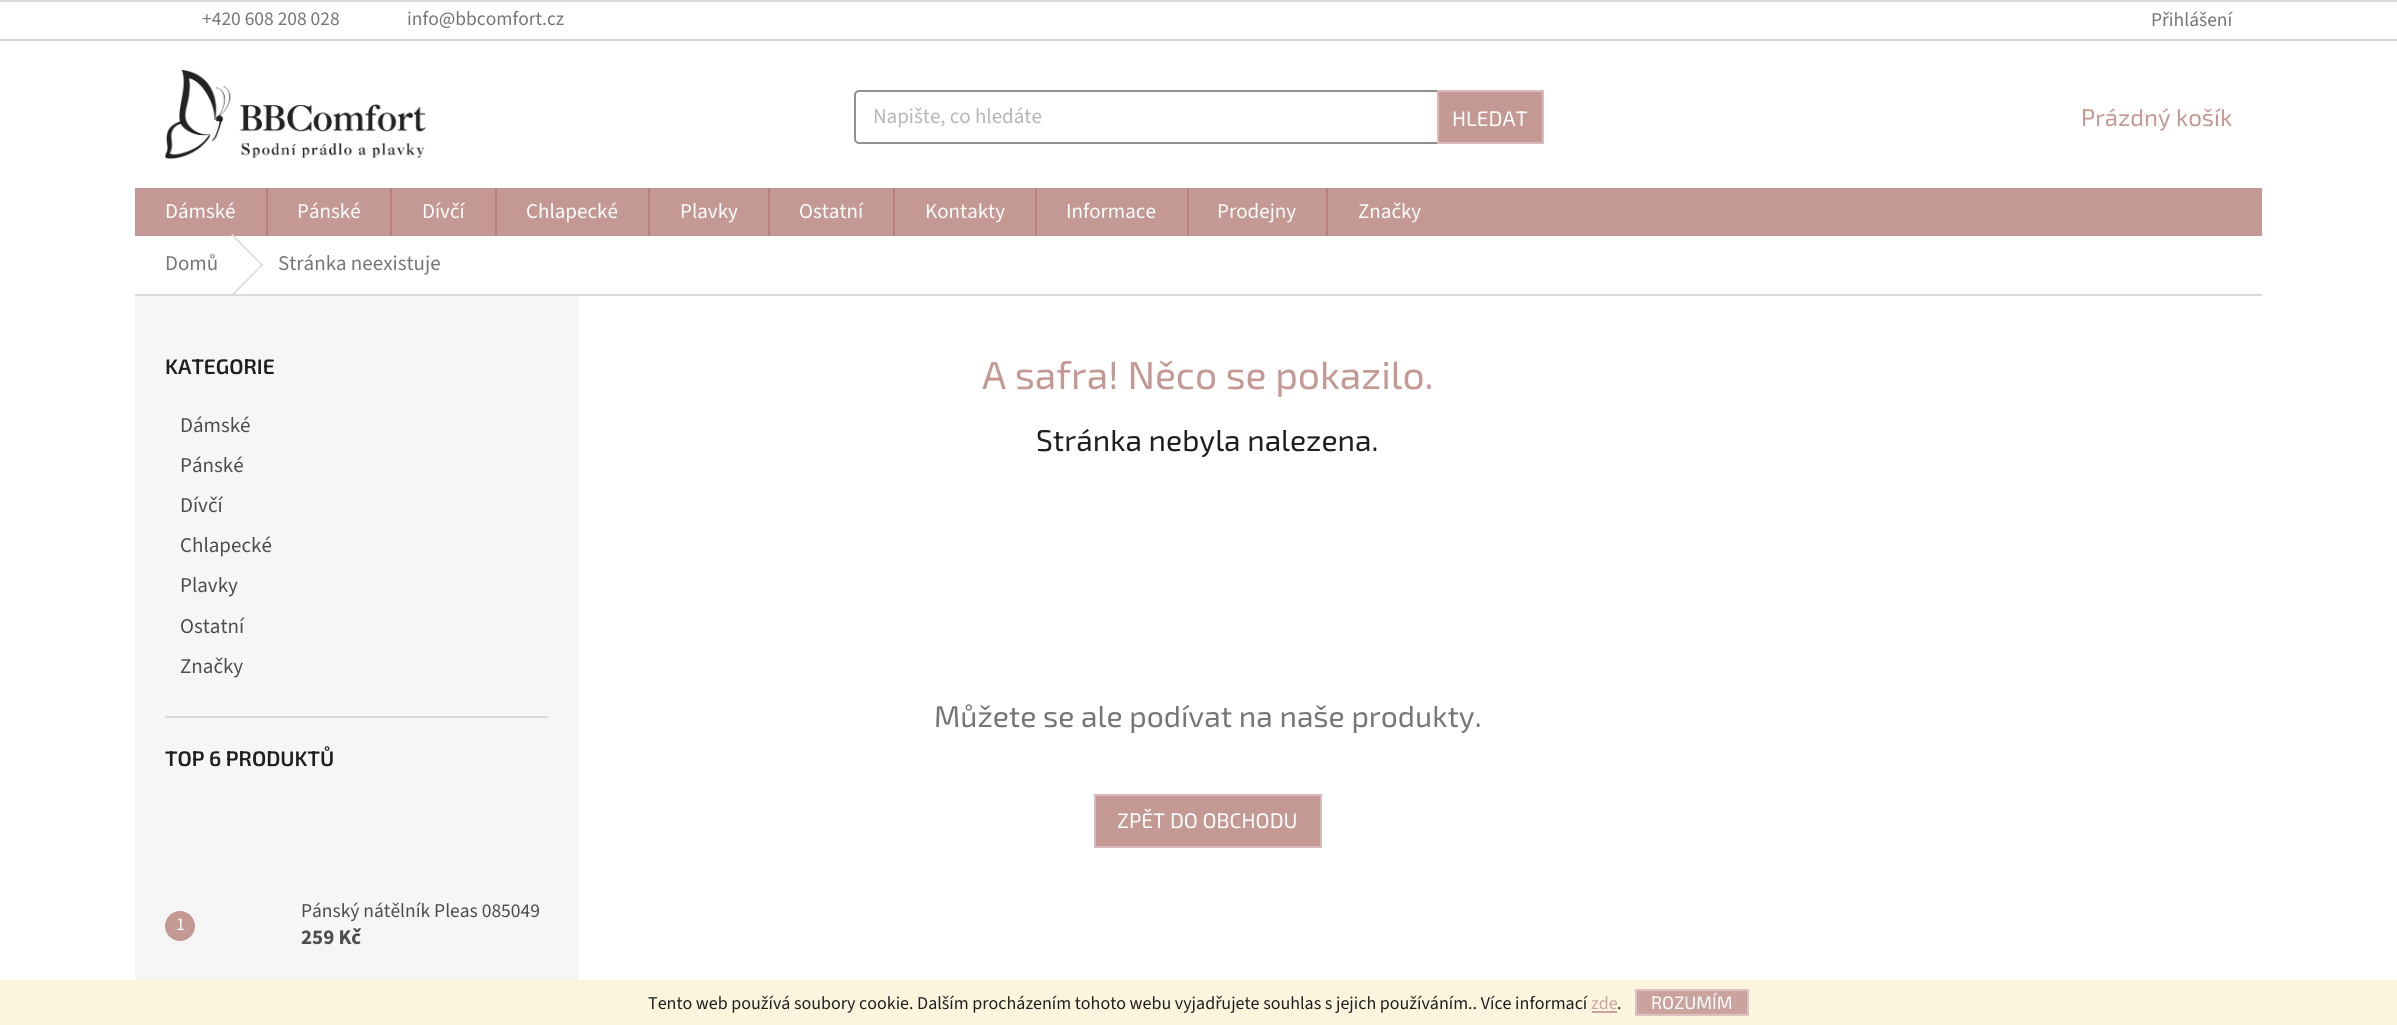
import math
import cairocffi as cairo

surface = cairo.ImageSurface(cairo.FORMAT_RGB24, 2397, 1025)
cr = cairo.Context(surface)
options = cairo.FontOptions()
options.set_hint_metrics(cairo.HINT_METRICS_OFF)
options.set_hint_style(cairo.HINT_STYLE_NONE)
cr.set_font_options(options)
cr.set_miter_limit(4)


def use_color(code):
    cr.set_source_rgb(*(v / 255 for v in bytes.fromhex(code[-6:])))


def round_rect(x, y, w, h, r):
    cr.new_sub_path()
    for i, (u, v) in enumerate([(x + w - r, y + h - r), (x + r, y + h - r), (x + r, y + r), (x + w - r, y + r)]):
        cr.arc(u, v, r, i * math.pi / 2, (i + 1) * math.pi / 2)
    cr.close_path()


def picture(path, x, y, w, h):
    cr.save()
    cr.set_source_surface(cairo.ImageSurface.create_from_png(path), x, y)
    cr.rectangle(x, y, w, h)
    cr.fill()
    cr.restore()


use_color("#ffffff")
cr.paint()
use_color("#fdf4de")
cr.rectangle(0, 980, 2397, 45)
cr.fill()
use_color("#dadada")
cr.rectangle(0, 0, 2397, 2)
cr.fill()
cr.rectangle(0, 39, 2397, 2)
cr.fill()
cr.select_font_face("Source Sans 3")
cr.set_font_size(19.5)
use_color("#767676")
cr.move_to(202, 25)
cr.show_text("+420 608 208 028")
cr.move_to(407, 25)
cr.show_text("info@bbcomfort.cz")
cr.move_to(2151, 26)
cr.show_text("Přihlášení")
picture("img1.png", 165, 69, 261, 90)
round_rect(855, 91, 688, 52, 4)
use_color("#919191")
cr.stroke()
cr.set_font_size(21)
use_color("#b6b6b6")
cr.move_to(873, 123)
cr.show_text("Napište, co hledáte")
use_color("#c49993")
cr.rectangle(1438, 91, 105, 52)
cr.fill_preserve()
use_color("#d9bbbd")
cr.stroke()
cr.select_font_face("Exo 2")
use_color("#ffffff")
cr.move_to(1452, 126)
cr.show_text("HLEDAT")
cr.set_font_size(24)
use_color("#c49993")
cr.move_to(2081, 126)
cr.show_text("Prázdný košík")
cr.rectangle(135, 188, 2127, 48)
cr.fill()
cr.select_font_face("Source Sans 3")
cr.set_font_size(21)
use_color("#ffffff")
cr.move_to(165, 218)
cr.show_text("Dámské")
use_color("#b7827b")
cr.rectangle(266, 188, 2, 48)
cr.fill()
use_color("#ffffff")
cr.move_to(297, 218)
cr.show_text("Pánské")
use_color("#b7827b")
cr.rectangle(390, 188, 2, 48)
cr.fill()
use_color("#ffffff")
cr.move_to(422, 218)
cr.show_text("Dívčí")
use_color("#b7827b")
cr.rectangle(495, 188, 2, 48)
cr.fill()
use_color("#ffffff")
cr.move_to(526, 218)
cr.show_text("Chlapecké")
use_color("#b7827b")
cr.rectangle(648, 188, 2, 48)
cr.fill()
use_color("#ffffff")
cr.move_to(680, 218)
cr.show_text("Plavky")
use_color("#b7827b")
cr.rectangle(768, 188, 2, 48)
cr.fill()
use_color("#ffffff")
cr.move_to(799, 218)
cr.show_text("Ostatní")
use_color("#b7827b")
cr.rectangle(893, 188, 2, 48)
cr.fill()
use_color("#ffffff")
cr.move_to(925, 218)
cr.show_text("Kontakty")
use_color("#b7827b")
cr.rectangle(1035, 188, 2, 48)
cr.fill()
use_color("#ffffff")
cr.move_to(1066, 218)
cr.show_text("Informace")
use_color("#b7827b")
cr.rectangle(1187, 188, 2, 48)
cr.fill()
use_color("#ffffff")
cr.move_to(1217, 218)
cr.show_text("Prodejny")
use_color("#b7827b")
cr.rectangle(1326, 188, 2, 48)
cr.fill()
use_color("#ffffff")
cr.move_to(1358, 218)
cr.show_text("Značky")
use_color("#dadada")
cr.rectangle(135, 294, 2127, 2)
cr.fill()
use_color("#767676")
cr.move_to(165, 270)
cr.show_text("Domů")
use_color("#dadada")
cr.new_path()
cr.move_to(231, 235)
cr.line_to(232.5, 234)
cr.line_to(263.5, 265.5)
cr.line_to(262.5, 266.5)
cr.close_path()
cr.fill()
cr.new_path()
cr.move_to(262.5, 263.5)
cr.line_to(263.5, 264.5)
cr.line_to(232.5, 296)
cr.line_to(231, 295)
cr.close_path()
cr.fill()
use_color("#767676")
cr.move_to(278, 270)
cr.show_text("Stránka neexistuje")
use_color("#f6f6f6")
cr.rectangle(135, 296, 443, 684)
cr.fill()
use_color("#dadada")
cr.rectangle(165, 716, 383, 2)
cr.fill()
cr.select_font_face("Exo 2 SemiBold")
use_color("#1f1f1f")
cr.move_to(165, 374)
cr.show_text("KATEGORIE")
cr.select_font_face("Source Sans 3")
use_color("#4d4d4d")
cr.move_to(180, 432)
cr.show_text("Dámské")
cr.move_to(180, 472)
cr.show_text("Pánské")
cr.move_to(180, 512)
cr.show_text("Dívčí")
cr.move_to(180, 552)
cr.show_text("Chlapecké")
cr.move_to(180, 592)
cr.show_text("Plavky")
cr.move_to(180, 633)
cr.show_text("Ostatní")
cr.move_to(180, 673)
cr.show_text("Značky")
cr.select_font_face("Exo 2 SemiBold")
use_color("#1f1f1f")
cr.move_to(165, 766)
cr.show_text("TOP 6 PRODUKTŮ")
use_color("#c49993")
cr.new_path()
cr.arc(180, 926, 15, 0, 2 * math.pi)
cr.fill()
cr.select_font_face("Source Sans 3")
cr.set_font_size(18)
use_color("#ffffff")
cr.move_to(176, 930)
cr.show_text("1")
cr.set_font_size(19.5)
use_color("#4d4d4d")
cr.move_to(301, 917)
cr.show_text("Pánský nátělník Pleas 085049")
cr.select_font_face("Source Sans 3", cairo.FONT_SLANT_NORMAL, cairo.FONT_WEIGHT_BOLD)
cr.set_font_size(21)
cr.move_to(301, 944)
cr.show_text("259 Kč")
cr.select_font_face("Exo 2")
cr.set_font_size(39)
use_color("#c49993")
cr.move_to(982, 389)
cr.show_text("A safra! Něco se pokazilo.")
cr.set_font_size(30)
use_color("#1f1f1f")
cr.move_to(1036, 451)
cr.show_text("Stránka nebyla nalezena.")
use_color("#767676")
cr.move_to(934, 727)
cr.show_text("Můžete se ale podívat na naše produkty.")
use_color("#c49993")
cr.rectangle(1095, 795, 226, 52)
cr.fill_preserve()
use_color("#d9bbbd")
cr.stroke()
cr.set_font_size(21)
use_color("#ffffff")
cr.move_to(1117, 828)
cr.show_text("ZPĚT DO OBCHODU")
cr.select_font_face("Source Sans 3")
cr.set_font_size(18)
use_color("#1f1f1f")
cr.move_to(648, 1009)
cr.show_text("Tento web používá soubory cookie. Dalším procházením tohoto webu vyjadřujete souhlas s jejich používáním.. Více informací")
use_color("#caa39e")
cr.move_to(1591, 1009)
cr.show_text("zde")
cr.rectangle(1592, 1011, 25, 2)
cr.fill()
use_color("#1f1f1f")
cr.move_to(1617, 1009)
cr.show_text(".")
use_color("#caa39e")
cr.rectangle(1636, 990, 112, 25)
cr.fill_preserve()
use_color("#ddc2c4")
cr.stroke()
cr.select_font_face("Exo 2")
use_color("#ffffff")
cr.move_to(1651, 1009)
cr.show_text("ROZUMÍM")
surface.write_to_png("result.png")
